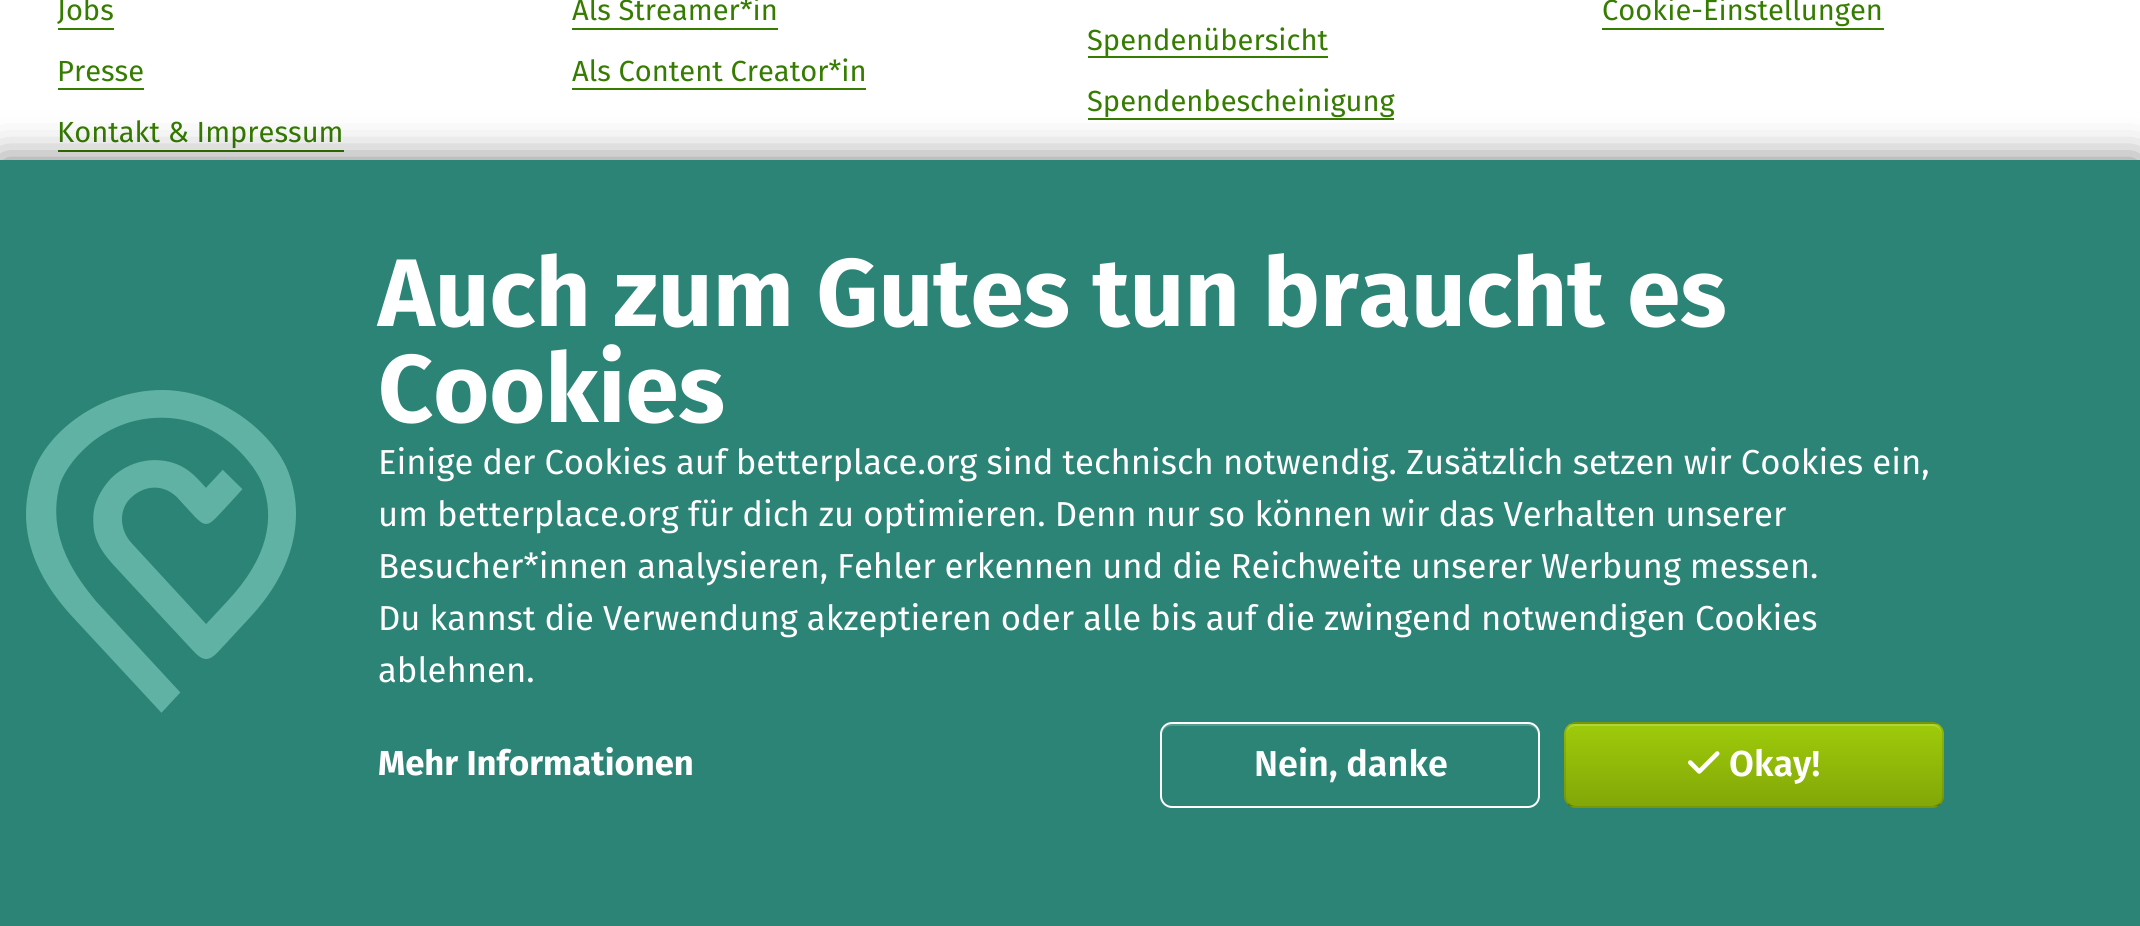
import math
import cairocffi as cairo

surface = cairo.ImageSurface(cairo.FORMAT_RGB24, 2140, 926)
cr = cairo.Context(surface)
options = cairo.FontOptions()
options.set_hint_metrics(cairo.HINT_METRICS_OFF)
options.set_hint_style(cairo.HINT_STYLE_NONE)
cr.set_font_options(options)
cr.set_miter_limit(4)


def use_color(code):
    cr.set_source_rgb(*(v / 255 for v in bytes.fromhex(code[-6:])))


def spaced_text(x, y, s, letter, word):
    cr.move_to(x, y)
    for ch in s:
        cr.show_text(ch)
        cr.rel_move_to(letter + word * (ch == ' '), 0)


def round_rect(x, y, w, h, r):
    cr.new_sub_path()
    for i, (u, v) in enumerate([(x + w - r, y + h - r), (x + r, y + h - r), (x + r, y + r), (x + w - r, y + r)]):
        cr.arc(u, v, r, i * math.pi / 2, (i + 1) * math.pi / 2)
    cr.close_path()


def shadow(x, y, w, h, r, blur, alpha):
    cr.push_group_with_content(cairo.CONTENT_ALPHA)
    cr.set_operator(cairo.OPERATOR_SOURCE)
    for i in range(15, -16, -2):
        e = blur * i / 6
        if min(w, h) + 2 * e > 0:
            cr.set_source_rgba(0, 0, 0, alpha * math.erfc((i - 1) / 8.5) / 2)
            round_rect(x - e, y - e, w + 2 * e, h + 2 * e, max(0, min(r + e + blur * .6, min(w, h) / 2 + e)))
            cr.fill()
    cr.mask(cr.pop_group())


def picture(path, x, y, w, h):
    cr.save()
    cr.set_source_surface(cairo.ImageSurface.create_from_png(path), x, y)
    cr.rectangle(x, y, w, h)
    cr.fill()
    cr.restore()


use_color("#ffffff")
cr.paint()
cr.select_font_face("Fira Sans")
cr.set_font_size(29.1)
use_color("#357c00")
cr.move_to(57, 20)
cr.show_text("Jobs")
cr.rectangle(58, 28, 56, 2)
cr.fill()
cr.move_to(57, 81)
cr.show_text("Presse")
cr.rectangle(58, 88, 86, 2)
cr.fill()
cr.move_to(57, 142)
cr.show_text("Kontakt & Impressum")
cr.rectangle(58, 150, 286, 2)
cr.fill()
cr.move_to(572, 20)
cr.show_text("Als Streamer*in")
cr.rectangle(572, 28, 206, 2)
cr.fill()
cr.move_to(572, 81)
cr.show_text("Als Content Creator*in")
cr.rectangle(572, 88, 294, 2)
cr.fill()
cr.move_to(1602, 20)
cr.show_text("Cookie-Einstellungen")
cr.rectangle(1602, 28, 282, 2)
cr.fill()
cr.rectangle(1088, 56, 240, 2)
cr.fill()
cr.move_to(1087, 50)
cr.show_text("Spendenübersicht")
cr.move_to(1087, 111)
cr.show_text("Spendenbescheinigung")
cr.rectangle(1088, 118, 306, 2)
cr.fill()
use_color("#000000")
shadow(0, 160, 2140, 766, 0, 20, 0.5)
use_color("#2b8475")
cr.rectangle(0, 160, 2140, 766)
cr.fill()
picture("img1.png", 26, 390, 270, 323)
cr.select_font_face("Fira Sans", cairo.FONT_SLANT_NORMAL, cairo.FONT_WEIGHT_BOLD)
cr.set_font_size(96)
use_color("#ffffff")
cr.move_to(378, 326)
cr.show_text("Auch zum Gutes tun braucht es")
cr.move_to(378, 422)
cr.show_text("Cookies")
cr.select_font_face("Fira Sans")
cr.set_font_size(34.65)
spaced_text(378, 474, "Einige der Cookies auf betterplace.org sind technisch notwendig. Zusätzlich setzen wir Cookies ein,", 0, -0.1)
cr.move_to(378, 526)
cr.show_text("um betterplace.org für dich zu optimieren. Denn nur so können wir das Verhalten unserer")
spaced_text(378, 578, "Besucher*innen analysieren, Fehler erkennen und die Reichweite unserer Werbung messen.", 0, -0.25)
spaced_text(378, 630, "Du kannst die Verwendung akzeptieren oder alle bis auf die zwingend notwendigen Cookies", 0, -0.1)
cr.move_to(378, 682)
cr.show_text("ablehnen.")
cr.select_font_face("Fira Sans", cairo.FONT_SLANT_NORMAL, cairo.FONT_WEIGHT_BOLD)
cr.move_to(378, 775)
cr.show_text("Mehr Informationen")
use_color("#559d91")
cr.new_path()
cr.move_to(1172, 726)
cr.line_to(1528, 726)
cr.curve_to(1534, 726, 1538, 730, 1538, 736)
cr.curve_to(1538, 731, 1536, 725, 1530, 724)
cr.line_to(1170, 724)
cr.curve_to(1164, 725, 1162, 731, 1162, 736)
cr.curve_to(1162, 730, 1166, 726, 1172, 726)
cr.close_path()
cr.fill()
round_rect(1161, 723, 378, 84, 11)
use_color("#ffffff")
cr.stroke()
cr.select_font_face("Fira Sans SemiBold")
cr.set_font_size(36)
cr.move_to(1254, 776)
cr.show_text("Nein, danke")
cr.save()
round_rect(1564, 722, 380, 86, 12)
cr.clip()
gradient = cairo.LinearGradient(1754, 642, 1754, 724)
gradient.add_color_stop_rgba(0, 0.62, 0.796, 0.039, 1)
gradient.add_color_stop_rgba(1, 0.51, 0.655, 0.031, 1)
cr.set_source(gradient)
cr.rectangle(1564, 722, 380, 2)
cr.fill()
gradient = cairo.LinearGradient(1754, 724, 1754, 806)
gradient.add_color_stop_rgba(0, 0.62, 0.796, 0.039, 1)
gradient.add_color_stop_rgba(1, 0.51, 0.655, 0.031, 1)
cr.set_source(gradient)
cr.rectangle(1564, 724, 380, 82)
cr.fill()
gradient = cairo.LinearGradient(1754, 806, 1754, 888)
gradient.add_color_stop_rgba(0, 0.62, 0.796, 0.039, 1)
gradient.add_color_stop_rgba(1, 0.51, 0.655, 0.031, 1)
cr.set_source(gradient)
cr.rectangle(1564, 806, 380, 2)
cr.fill()
cr.restore()
use_color("#b1d53b")
cr.new_path()
cr.move_to(1576, 726)
cr.line_to(1932, 726)
cr.curve_to(1938, 726, 1942, 730, 1942, 736)
cr.curve_to(1942, 731, 1940, 725, 1934, 724)
cr.line_to(1574, 724)
cr.curve_to(1568, 725, 1566, 731, 1566, 736)
cr.curve_to(1566, 730, 1570, 726, 1576, 726)
cr.close_path()
cr.fill()
cr.new_path()
cr.move_to(1940, 804)
cr.curve_to(1937.5, 806, 1935, 807, 1932, 807)
cr.line_to(1576, 807)
cr.curve_to(1573, 807, 1570.5, 806, 1568, 804)
cr.set_source_rgba(0, 0, 0, 0.25)
cr.stroke()
cr.new_path()
cr.move_to(1568, 804)
cr.curve_to(1566, 801.5, 1565, 799, 1565, 796)
cr.line_to(1565, 734)
cr.curve_to(1565, 731, 1566, 728.5, 1568, 726)
cr.curve_to(1570.5, 724, 1573, 723, 1576, 723)
cr.line_to(1932, 723)
cr.curve_to(1935, 723, 1937.5, 724, 1940, 726)
cr.curve_to(1942, 728.5, 1943, 731, 1943, 734)
cr.line_to(1943, 796)
cr.curve_to(1943, 799, 1942, 801.5, 1940, 804)
cr.set_source_rgba(0, 0, 0, 0.1)
cr.stroke()
picture("img2.png", 1688, 751, 32, 23)
use_color("#ffffff")
cr.move_to(1729, 776)
cr.show_text("Okay!")
surface.write_to_png("result.png")
